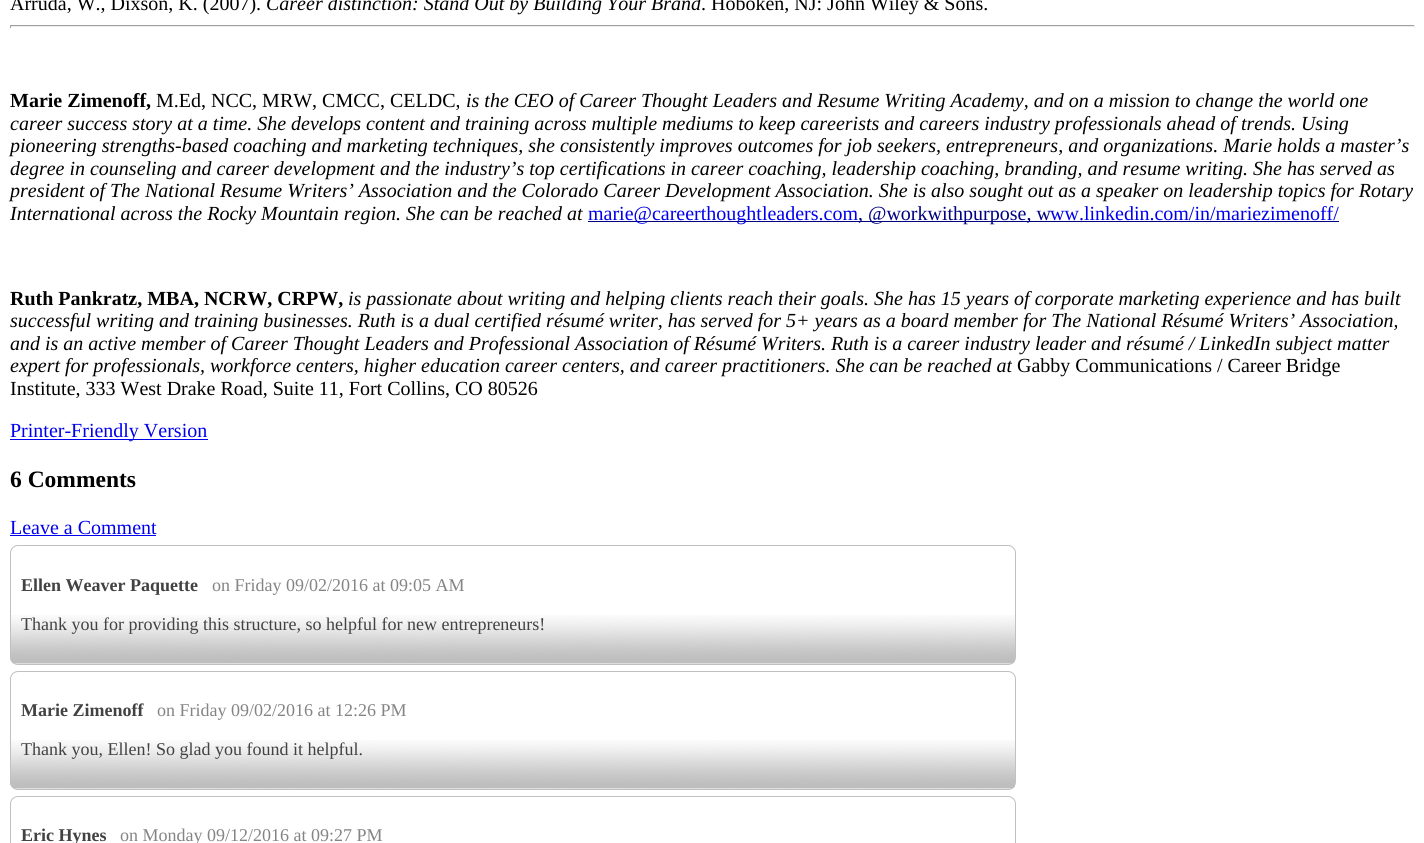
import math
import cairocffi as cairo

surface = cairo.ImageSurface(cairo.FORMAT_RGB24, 1424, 843)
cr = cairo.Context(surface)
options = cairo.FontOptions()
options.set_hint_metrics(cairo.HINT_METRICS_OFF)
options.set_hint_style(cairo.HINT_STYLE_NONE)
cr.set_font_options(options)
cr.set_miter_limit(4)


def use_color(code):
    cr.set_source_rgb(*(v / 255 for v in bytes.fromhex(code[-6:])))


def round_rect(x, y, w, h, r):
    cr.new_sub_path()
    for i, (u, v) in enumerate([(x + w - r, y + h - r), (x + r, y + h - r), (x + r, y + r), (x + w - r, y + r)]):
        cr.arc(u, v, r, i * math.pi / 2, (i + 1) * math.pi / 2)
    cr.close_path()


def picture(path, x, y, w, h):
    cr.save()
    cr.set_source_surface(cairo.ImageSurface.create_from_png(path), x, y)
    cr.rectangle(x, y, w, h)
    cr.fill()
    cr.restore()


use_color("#ffffff")
cr.paint()
cr.select_font_face("Liberation Serif")
cr.set_font_size(20)
use_color("#000000")
cr.move_to(10, 10)
cr.show_text("Arruda, W., Dixson, K. (2007).")
cr.select_font_face("Liberation Serif", cairo.FONT_SLANT_ITALIC)
cr.move_to(266, 10)
cr.show_text("Career distinction: Stand Out by Building Your Brand")
cr.select_font_face("Liberation Serif")
cr.move_to(701, 10)
cr.show_text(". Hoboken, NJ: John Wiley & Sons.")
use_color("#9f9f9f")
cr.rectangle(10, 25, 1405, 1)
cr.fill()
use_color("#eeeeee")
cr.rectangle(1414, 25, 1, 3)
cr.fill()
cr.rectangle(10, 26, 1405, 1)
cr.fill()
use_color("#9f9f9f")
cr.rectangle(10, 25, 1, 3)
cr.fill()
cr.select_font_face("Liberation Serif", cairo.FONT_SLANT_NORMAL, cairo.FONT_WEIGHT_BOLD)
use_color("#000000")
cr.move_to(10, 107)
cr.show_text("Marie Zimenoff,")
cr.select_font_face("Liberation Serif")
cr.move_to(156, 107)
cr.show_text("M.Ed, NCC, MRW, CMCC, CELDC,")
cr.select_font_face("Liberation Serif", cairo.FONT_SLANT_ITALIC)
cr.move_to(466, 107)
cr.show_text("is the CEO of Career Thought Leaders and Resume Writing Academy, and on a mission to change the world one")
cr.move_to(10, 130)
cr.show_text("career success story at a time. She develops content and training across multiple mediums to keep careerists and careers industry professionals ahead of trends. Using")
cr.move_to(10, 152)
cr.show_text("pioneering strengths-based coaching and marketing techniques, she consistently improves outcomes for job seekers, entrepreneurs, and organizations. Marie holds a master’s")
cr.move_to(10, 175)
cr.show_text("degree in counseling and career development and the industry’s top certifications in career coaching, leadership coaching, branding, and resume writing. She has served as")
cr.move_to(10, 197)
cr.show_text("president of The National Resume Writers’ Association and the Colorado Career Development Association. She is also sought out as a speaker on leadership topics for Rotary")
cr.move_to(10, 220)
cr.show_text("International across the Rocky Mountain region. She can be reached at")
use_color("#000080")
cr.rectangle(588, 221, 462, 1)
cr.fill()
cr.select_font_face("Liberation Serif")
use_color("#0000ee")
cr.move_to(588, 220)
cr.show_text("marie@careerthoughtleaders.com")
use_color("#000080")
cr.move_to(858, 220)
cr.show_text(", @workwithpurpose, w")
cr.rectangle(1050, 221, 289, 1)
cr.fill()
use_color("#0000ee")
cr.move_to(1050, 220)
cr.show_text("ww.linkedin.com/in/mariezimenoff/")
cr.select_font_face("Liberation Serif", cairo.FONT_SLANT_NORMAL, cairo.FONT_WEIGHT_BOLD)
use_color("#000000")
cr.move_to(10, 305)
cr.show_text("Ruth Pankratz, MBA, NCRW, CRPW,")
cr.select_font_face("Liberation Serif", cairo.FONT_SLANT_ITALIC)
cr.move_to(348, 305)
cr.show_text("is passionate about writing and helping clients reach their goals. She has 15 years of corporate marketing experience and has built")
cr.move_to(10, 327)
cr.show_text("successful writing and training businesses. Ruth is a dual certified résumé writer, has served for 5+ years as a board member for The National Résumé Writers’ Association,")
cr.move_to(10, 350)
cr.show_text("and is an active member of Career Thought Leaders and Professional Association of Résumé Writers. Ruth is a career industry leader and résumé / LinkedIn subject matter")
cr.move_to(10, 372)
cr.show_text("expert for professionals, workforce centers, higher education career centers, and career practitioners. She can be reached at")
cr.select_font_face("Liberation Serif")
cr.move_to(1017, 372)
cr.show_text("Gabby Communications / Career Bridge")
cr.move_to(10, 395)
cr.show_text("Institute, 333 West Drake Road, Suite 11, Fort Collins, CO 80526")
use_color("#0000ee")
cr.rectangle(10, 439, 198, 1)
cr.fill()
cr.move_to(10, 437)
cr.show_text("Printer-Friendly Version")
cr.select_font_face("Liberation Serif", cairo.FONT_SLANT_NORMAL, cairo.FONT_WEIGHT_BOLD)
cr.set_font_size(23.5)
use_color("#000000")
cr.move_to(10, 487)
cr.show_text("6 Comments")
cr.select_font_face("Liberation Serif")
cr.set_font_size(20)
use_color("#0000ee")
cr.move_to(10, 534)
cr.show_text("Leave a Comment")
cr.rectangle(10, 535, 146, 1)
cr.fill()
picture("img1.png", 10, 615, 1005, 49)
round_rect(10.5, 545.5, 1005, 119, 7.5)
use_color("#c0c0c0")
cr.set_line_width(1)
cr.stroke()
cr.select_font_face("Liberation Serif", cairo.FONT_SLANT_NORMAL, cairo.FONT_WEIGHT_BOLD)
cr.set_font_size(18)
use_color("#424242")
cr.move_to(21, 591)
cr.show_text("Ellen Weaver Paquette")
cr.select_font_face("Liberation Serif")
use_color("#848484")
cr.move_to(212, 591)
cr.show_text("on Friday 09/02/2016 at 09:05 AM")
use_color("#424242")
cr.move_to(21, 630)
cr.show_text("Thank you for providing this structure, so helpful for new entrepreneurs!")
picture("img1.png", 10, 740, 1005, 49)
round_rect(10.5, 671.5, 1005, 118, 7.5)
use_color("#c0c0c0")
cr.stroke()
cr.select_font_face("Liberation Serif", cairo.FONT_SLANT_NORMAL, cairo.FONT_WEIGHT_BOLD)
use_color("#424242")
cr.move_to(21, 716)
cr.show_text("Marie Zimenoff")
cr.select_font_face("Liberation Serif")
use_color("#848484")
cr.move_to(157, 716)
cr.show_text("on Friday 09/02/2016 at 12:26 PM")
use_color("#424242")
cr.move_to(21, 755)
cr.show_text("Thank you, Ellen! So glad you found it helpful.")
round_rect(10.5, 796.5, 1005, 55, 7.5)
use_color("#c0c0c0")
cr.stroke()
cr.select_font_face("Liberation Serif", cairo.FONT_SLANT_NORMAL, cairo.FONT_WEIGHT_BOLD)
use_color("#424242")
cr.move_to(21, 841)
cr.show_text("Eric Hynes")
cr.select_font_face("Liberation Serif")
use_color("#848484")
cr.move_to(120, 841)
cr.show_text("on Monday 09/12/2016 at 09:27 PM")
surface.write_to_png("result.png")
